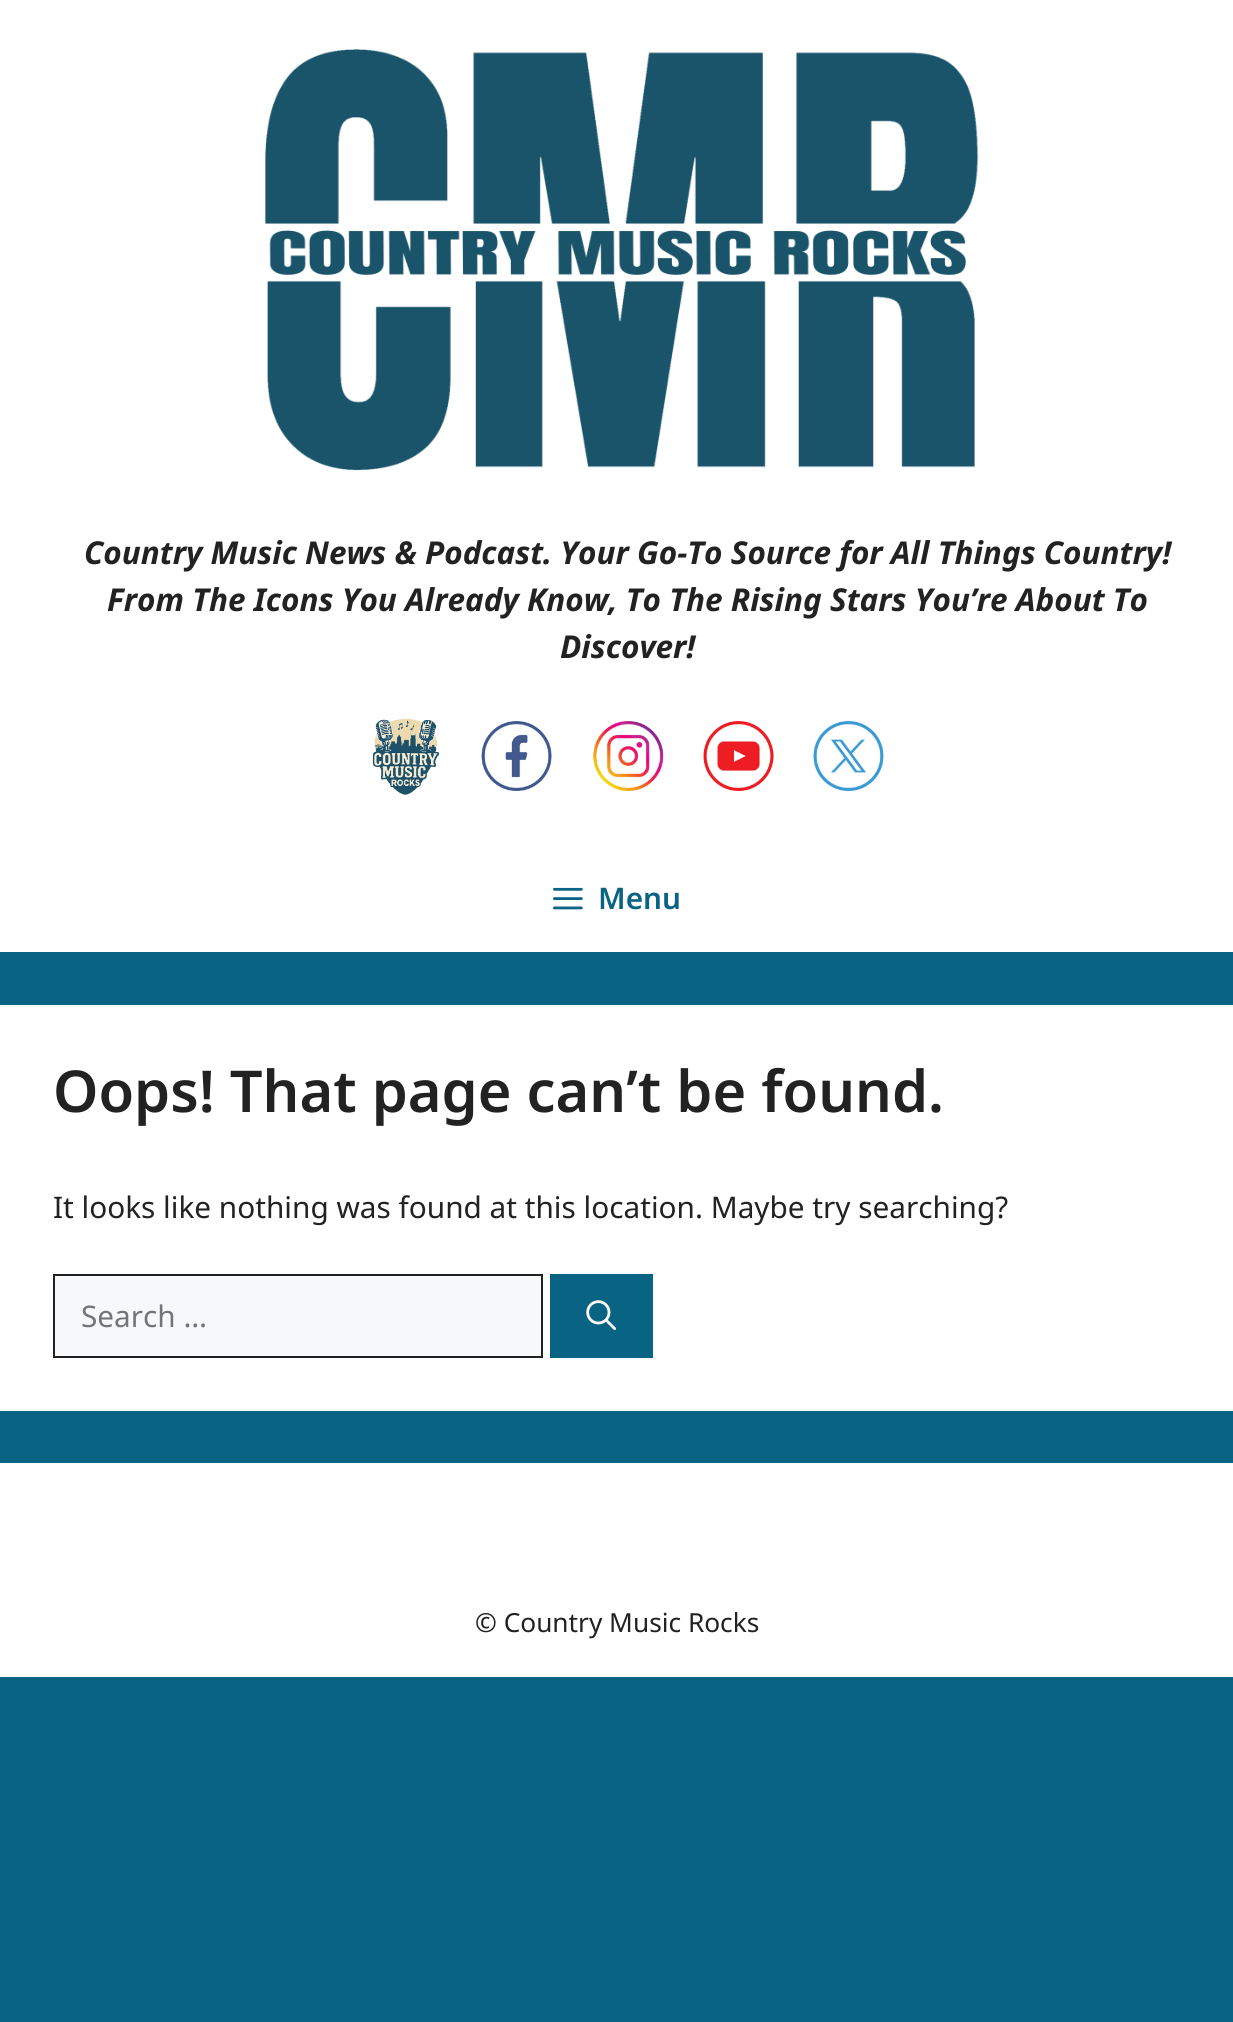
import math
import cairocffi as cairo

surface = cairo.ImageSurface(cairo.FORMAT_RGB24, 1233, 2022)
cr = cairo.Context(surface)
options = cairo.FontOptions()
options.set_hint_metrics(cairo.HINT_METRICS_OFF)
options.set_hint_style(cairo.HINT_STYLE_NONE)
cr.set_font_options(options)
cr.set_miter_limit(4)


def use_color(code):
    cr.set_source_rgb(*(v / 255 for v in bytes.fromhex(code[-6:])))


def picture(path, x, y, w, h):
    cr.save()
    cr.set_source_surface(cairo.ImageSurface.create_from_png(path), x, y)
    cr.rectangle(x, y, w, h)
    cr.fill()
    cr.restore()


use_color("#096484")
cr.paint()
use_color("#ffffff")
cr.rectangle(0, 0, 1233, 952)
cr.fill()
picture("img1.png", 265, 49, 714, 422)
cr.select_font_face("Noto Sans", cairo.FONT_SLANT_ITALIC, cairo.FONT_WEIGHT_BOLD)
cr.set_font_size(31.5)
use_color("#222222")
cr.move_to(84, 564)
cr.show_text("Country Music News & Podcast. Your Go-To Source for All Things Country!")
cr.move_to(107, 611)
cr.show_text("From The Icons You Already Know, To The Rising Stars You’re About To")
cr.move_to(560, 658)
cr.show_text("Discover!")
picture("img2.png", 372, 718, 68, 77)
picture("img3.png", 481, 721, 71, 70)
picture("img4.png", 593, 721, 71, 70)
picture("img5.png", 703, 720, 71, 72)
picture("img6.png", 813, 721, 71, 70)
picture("img7.png", 553, 887, 30, 23)
cr.select_font_face("Noto Sans SemiBold")
cr.set_font_size(29.75)
use_color("#096484")
cr.move_to(598, 909)
cr.show_text("Menu")
use_color("#ffffff")
cr.rectangle(0, 1005, 1233, 406)
cr.fill()
cr.set_font_size(57.75)
use_color("#222222")
cr.move_to(53, 1112)
cr.show_text("Oops! That page can’t be found.")
cr.select_font_face("Noto Sans")
cr.set_font_size(29.75)
cr.move_to(53, 1218)
cr.show_text("It looks like nothing was found at this location. Maybe try searching?")
use_color("#f7f8f9")
cr.rectangle(54, 1275, 488, 82)
cr.fill_preserve()
use_color("#222222")
cr.stroke()
use_color("#757575")
cr.move_to(81, 1327)
cr.show_text("Search …")
use_color("#096484")
cr.rectangle(550, 1274, 103, 84)
cr.fill()
picture("img8.png", 586, 1300, 30, 30)
use_color("#ffffff")
cr.rectangle(0, 1463, 1233, 214)
cr.fill()
cr.set_font_size(26.25)
use_color("#222222")
cr.move_to(475, 1632)
cr.show_text("© Country Music Rocks")
surface.write_to_png("result.png")
